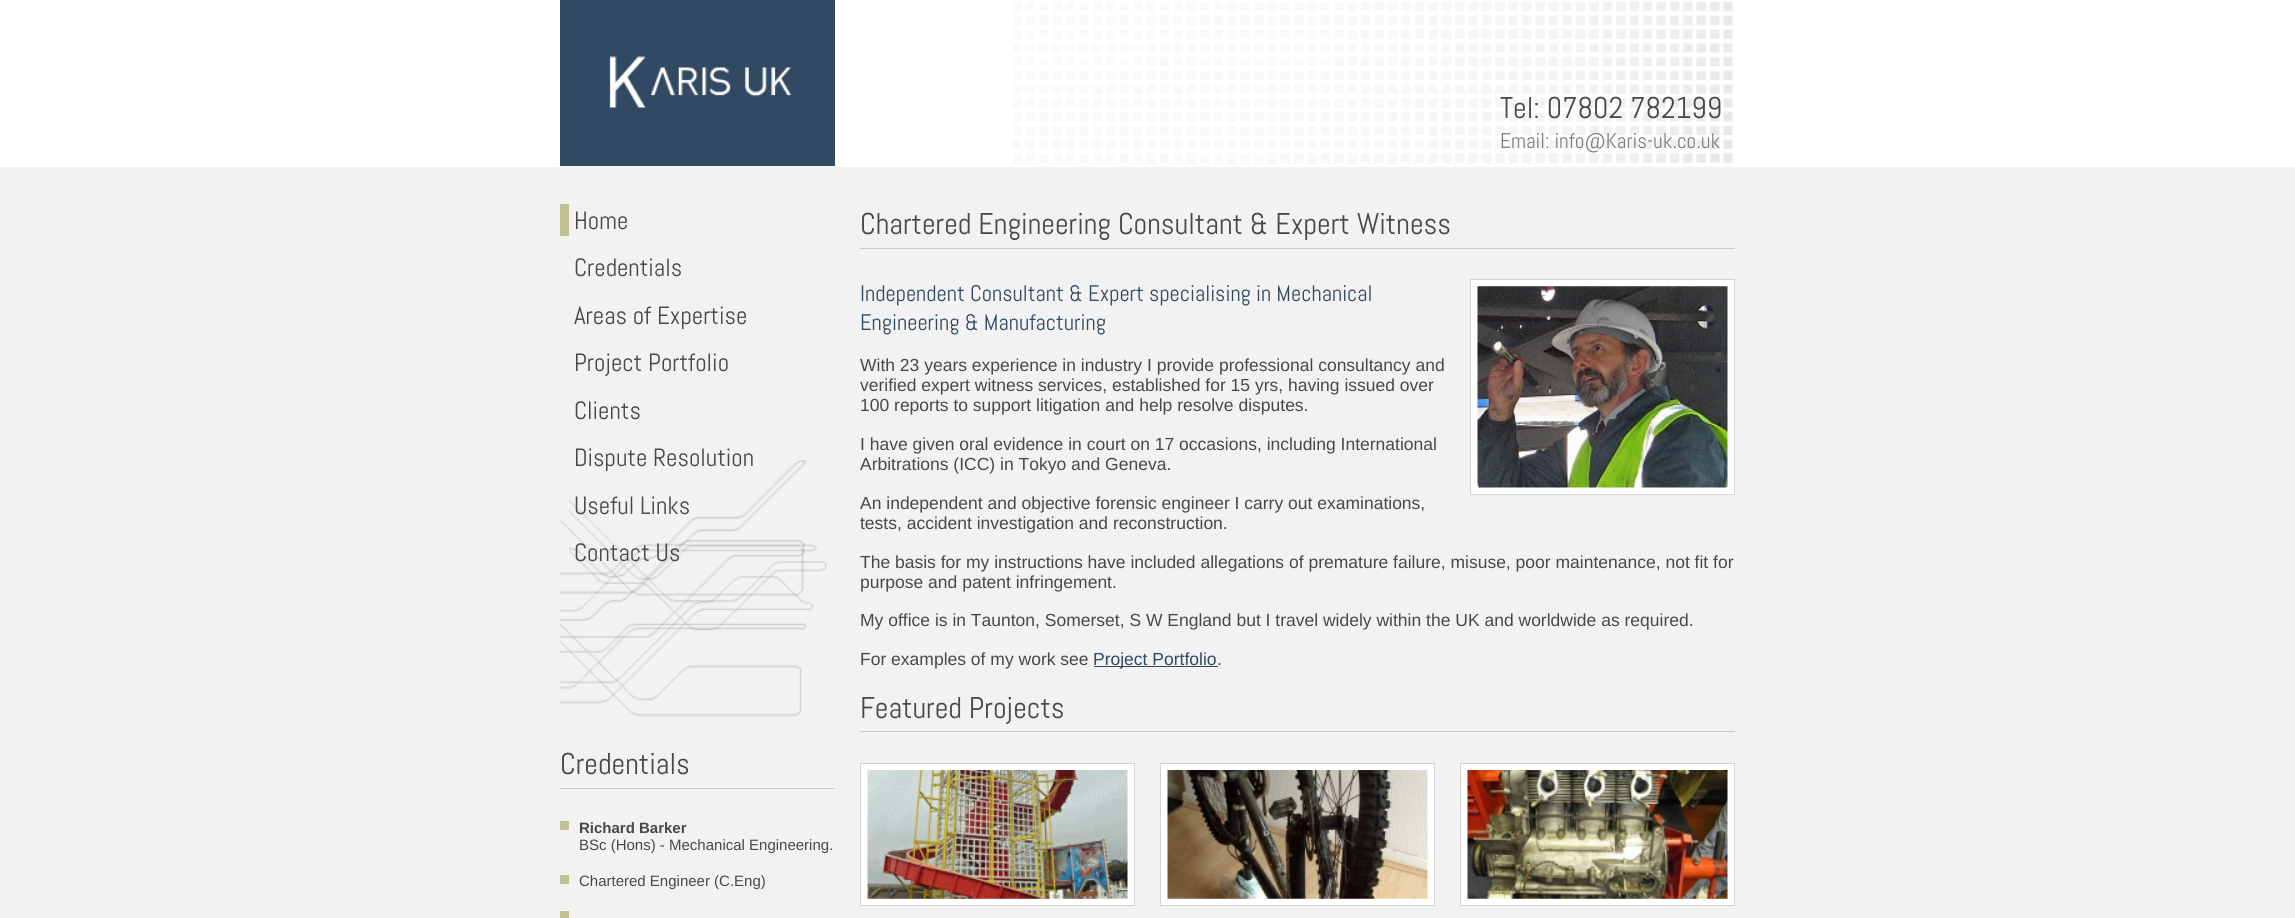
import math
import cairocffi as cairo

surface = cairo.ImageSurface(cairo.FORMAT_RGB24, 2295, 918)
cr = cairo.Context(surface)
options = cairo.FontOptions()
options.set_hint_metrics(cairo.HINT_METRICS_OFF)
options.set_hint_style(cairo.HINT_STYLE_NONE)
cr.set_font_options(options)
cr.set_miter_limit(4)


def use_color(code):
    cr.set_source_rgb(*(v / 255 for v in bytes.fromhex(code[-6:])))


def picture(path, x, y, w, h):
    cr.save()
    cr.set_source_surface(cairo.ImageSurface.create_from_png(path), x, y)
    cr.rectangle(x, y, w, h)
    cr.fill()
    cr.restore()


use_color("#f2f2f2")
cr.paint()
use_color("#ffffff")
cr.rectangle(0, 0, 2295, 167)
cr.fill()
picture("img1.png", 1013, 1, 720, 163)
picture("img2.png", 560, 0, 275, 167)
cr.select_font_face("Abel")
cr.set_font_size(30)
use_color("#48484a")
cr.move_to(1500, 118)
cr.show_text("Tel: 07802 782199")
cr.set_font_size(21.25)
use_color("#7e7e7e")
cr.move_to(1500, 148)
cr.show_text("Email: info@Karis-uk.co.uk")
picture("img3.png", 560, 460, 267, 257)
cr.set_font_size(25)
use_color("#48484a")
cr.move_to(574, 229)
cr.show_text("Home")
use_color("#bfc192")
cr.rectangle(560, 204, 9, 32)
cr.fill()
use_color("#48484a")
cr.move_to(574, 276)
cr.show_text("Credentials")
cr.move_to(574, 324)
cr.show_text("Areas of Expertise")
cr.move_to(574, 371)
cr.show_text("Project Portfolio")
cr.move_to(574, 419)
cr.show_text("Clients")
cr.move_to(574, 466)
cr.show_text("Dispute Resolution")
cr.move_to(574, 514)
cr.show_text("Useful Links")
use_color("#f2f2f2")
cr.rectangle(560, 491, 9, 30)
cr.fill()
use_color("#48484a")
cr.move_to(574, 561)
cr.show_text("Contact Us")
use_color("#f2f2f2")
cr.rectangle(560, 540, 9, 12)
cr.fill()
use_color("#cccccc")
cr.rectangle(560, 788, 275, 1)
cr.fill()
cr.set_font_size(30)
use_color("#48484a")
cr.move_to(560, 774)
cr.show_text("Credentials")
use_color("#bfc192")
cr.rectangle(560, 821, 9, 9)
cr.fill()
cr.select_font_face("Liberation Sans", cairo.FONT_SLANT_NORMAL, cairo.FONT_WEIGHT_BOLD)
cr.set_font_size(15)
use_color("#48484a")
cr.move_to(579, 833)
cr.show_text("Richard Barker")
cr.select_font_face("Liberation Sans")
cr.move_to(579, 850)
cr.show_text("BSc (Hons) - Mechanical Engineering.")
use_color("#bfc192")
cr.rectangle(560, 875, 9, 9)
cr.fill()
use_color("#48484a")
cr.move_to(579, 886)
cr.show_text("Chartered Engineer (C.Eng)")
use_color("#bfc192")
cr.rectangle(560, 911, 9, 7)
cr.fill()
use_color("#cccccc")
cr.rectangle(860, 248, 875, 1)
cr.fill()
cr.select_font_face("Abel")
cr.set_font_size(30)
use_color("#48484a")
cr.move_to(860, 234)
cr.show_text("Chartered Engineering Consultant & Expert Witness")
cr.set_font_size(22.5)
use_color("#314963")
cr.move_to(860, 301)
cr.show_text("Independent Consultant & Expert specialising in Mechanical")
cr.move_to(860, 330)
cr.show_text("Engineering & Manufacturing")
use_color("#ffffff")
cr.rectangle(1470.5, 279.5, 264, 215)
cr.fill_preserve()
use_color("#d3d3d3")
cr.set_line_width(1)
cr.stroke()
picture("img4.png", 1477, 286, 251, 202)
cr.select_font_face("Liberation Sans")
cr.set_font_size(17.5)
use_color("#48484a")
cr.move_to(860, 371)
cr.show_text("With 23 years experience in industry I provide professional consultancy and")
cr.move_to(860, 391)
cr.show_text("verified expert witness services, established for 15 yrs, having issued over")
cr.move_to(860, 411)
cr.show_text("100 reports to support litigation and help resolve disputes.")
cr.move_to(860, 450)
cr.show_text("I have given oral evidence in court on 17 occasions, including International")
cr.move_to(860, 470)
cr.show_text("Arbitrations (ICC) in Tokyo and Geneva.")
cr.move_to(860, 509)
cr.show_text("An independent and objective forensic engineer I carry out examinations,")
cr.move_to(860, 529)
cr.show_text("tests, accident investigation and reconstruction.")
cr.move_to(860, 568)
cr.show_text("The basis for my instructions have included allegations of premature failure, misuse, poor maintenance, not fit for")
cr.move_to(860, 588)
cr.show_text("purpose and patent infringement.")
cr.move_to(860, 626)
cr.show_text("My office is in Taunton, Somerset, S W England but I travel widely within the UK and worldwide as required.")
cr.move_to(860, 665)
cr.show_text("For examples of my work see")
use_color("#314963")
cr.rectangle(1094, 666, 124, 1)
cr.fill()
cr.move_to(1093, 665)
cr.show_text("Project Portfolio")
use_color("#48484a")
cr.move_to(1217, 665)
cr.show_text(".")
use_color("#cccccc")
cr.rectangle(860, 731, 875, 1)
cr.fill()
cr.select_font_face("Abel")
cr.set_font_size(30)
use_color("#48484a")
cr.move_to(860, 718)
cr.show_text("Featured Projects")
use_color("#ffffff")
cr.rectangle(860.5, 763.5, 274, 142)
cr.fill_preserve()
use_color("#d3d3d3")
cr.stroke()
picture("img5.png", 867, 770, 261, 129)
use_color("#ffffff")
cr.rectangle(1160.5, 763.5, 274, 142)
cr.fill_preserve()
use_color("#d3d3d3")
cr.stroke()
picture("img6.png", 1167, 770, 261, 129)
use_color("#ffffff")
cr.rectangle(1460.5, 763.5, 274, 142)
cr.fill_preserve()
use_color("#d3d3d3")
cr.stroke()
picture("img7.png", 1467, 770, 261, 129)
surface.write_to_png("result.png")
